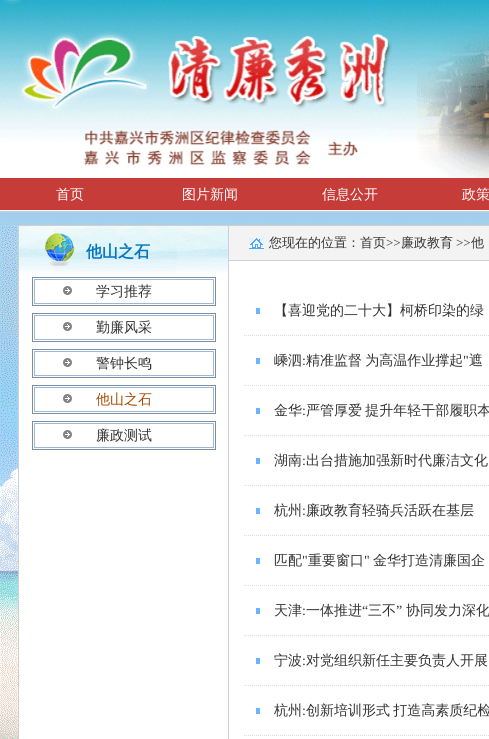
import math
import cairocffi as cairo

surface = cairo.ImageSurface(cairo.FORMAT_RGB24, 489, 739)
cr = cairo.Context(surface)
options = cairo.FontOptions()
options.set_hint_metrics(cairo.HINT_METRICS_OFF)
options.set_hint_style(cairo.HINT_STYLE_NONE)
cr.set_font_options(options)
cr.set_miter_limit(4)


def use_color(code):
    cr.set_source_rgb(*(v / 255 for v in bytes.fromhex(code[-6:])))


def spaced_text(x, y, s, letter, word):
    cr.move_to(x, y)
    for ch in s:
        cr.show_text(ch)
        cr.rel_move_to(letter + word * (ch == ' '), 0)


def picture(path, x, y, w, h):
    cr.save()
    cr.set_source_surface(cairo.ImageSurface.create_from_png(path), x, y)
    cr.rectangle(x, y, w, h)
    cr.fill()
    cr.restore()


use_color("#c53c38")
cr.paint()
picture("img1.png", 0, 0, 489, 178)
cr.select_font_face("WenQuanYi Zen Hei Medium")
cr.set_font_size(14)
use_color("#ffffff")
cr.move_to(56, 199)
cr.show_text("首页")
cr.move_to(182, 199)
cr.show_text("图片新闻")
cr.move_to(322, 199)
cr.show_text("信息公开")
cr.move_to(462, 199)
cr.show_text("政策")
picture("img2.png", 0, 210, 489, 15)
picture("img3.png", 0, 225, 18, 514)
cr.rectangle(19, 261, 470, 478)
cr.fill()
cr.rectangle(18.5, 225.5, 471, 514)
use_color("#d0d0d0")
cr.set_line_width(1)
cr.stroke()
cr.rectangle(228, 226, 1, 513)
cr.fill()
picture("img4.png", 19, 226, 209, 48)
cr.select_font_face("WenQuanYi Zen Hei", cairo.FONT_SLANT_NORMAL, cairo.FONT_WEIGHT_BOLD)
cr.set_font_size(16)
use_color("#0475c0")
cr.move_to(86, 257)
cr.show_text("他山之石")
picture("img5.png", 32, 277, 184, 29)
cr.select_font_face("WenQuanYi Zen Hei Medium")
cr.set_font_size(14)
use_color("#333333")
cr.move_to(96, 296)
cr.show_text("学习推荐")
picture("img5.png", 32, 313, 184, 29)
cr.move_to(96, 332)
cr.show_text("勤廉风采")
picture("img5.png", 32, 349, 184, 29)
cr.move_to(96, 368)
cr.show_text("警钟长鸣")
picture("img5.png", 32, 385, 184, 29)
use_color("#a84905")
cr.move_to(96, 404)
cr.show_text("他山之石")
picture("img5.png", 32, 421, 184, 29)
use_color("#333333")
cr.move_to(96, 440)
cr.show_text("廉政测试")
use_color("#f3f3f3")
cr.rectangle(229, 226, 260, 34)
cr.fill()
use_color("#d0d0d0")
cr.rectangle(229, 260, 260, 1)
cr.fill()
picture("img6.png", 249, 238, 15, 11)
cr.set_font_size(13)
use_color("#333333")
cr.move_to(269, 247)
cr.show_text("您现在的位置：首页")
cr.select_font_face("Liberation Serif")
cr.move_to(386, 247)
cr.show_text(">>")
cr.select_font_face("WenQuanYi Zen Hei Medium")
cr.move_to(401, 247)
cr.show_text("廉政教育")
cr.select_font_face("Liberation Serif")
cr.move_to(456, 247)
cr.show_text(">>")
cr.select_font_face("WenQuanYi Zen Hei Medium")
cr.move_to(471, 247)
cr.show_text("他")
use_color("#69b5ff")
cr.rectangle(256, 308, 4, 6)
cr.fill()
cr.new_path()
cr.move_to(244, 335.5)
cr.line_to(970, 335.5)
use_color("#dedede")
cr.set_dash([1, 1])
cr.stroke()
cr.set_font_size(14)
use_color("#333333")
cr.move_to(274, 315)
cr.show_text("【喜迎党的二十大】柯桥印染的绿")
use_color("#69b5ff")
cr.rectangle(256, 358, 4, 6)
cr.fill()
cr.new_path()
cr.move_to(244, 385.5)
cr.line_to(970, 385.5)
use_color("#dedede")
cr.stroke()
use_color("#333333")
cr.move_to(274, 365)
cr.show_text("嵊泗")
spaced_text(306, 365, "精准监督 为高温作业撑起", 0, -1)
cr.select_font_face("Liberation Serif")
cr.move_to(463, 365)
cr.show_text("\"")
cr.select_font_face("WenQuanYi Zen Hei Medium")
cr.move_to(469, 365)
cr.show_text("遮")
cr.select_font_face("Liberation Serif")
cr.move_to(302, 365)
cr.show_text(":")
use_color("#69b5ff")
cr.rectangle(256, 408, 4, 6)
cr.fill()
cr.new_path()
cr.move_to(244, 435.5)
cr.line_to(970, 435.5)
use_color("#dedede")
cr.stroke()
cr.select_font_face("WenQuanYi Zen Hei Medium")
use_color("#333333")
cr.move_to(274, 415)
cr.show_text("金华")
cr.select_font_face("Liberation Serif")
cr.move_to(302, 415)
cr.show_text(":")
cr.select_font_face("WenQuanYi Zen Hei Medium")
spaced_text(306, 415, "严管厚爱 提升年轻干部履职本", 0, -1)
use_color("#69b5ff")
cr.rectangle(256, 458, 4, 6)
cr.fill()
cr.new_path()
cr.move_to(244, 485.5)
cr.line_to(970, 485.5)
use_color("#dedede")
cr.stroke()
use_color("#333333")
cr.move_to(274, 465)
cr.show_text("湖南")
cr.select_font_face("Liberation Serif")
cr.move_to(302, 465)
cr.show_text(":")
cr.select_font_face("WenQuanYi Zen Hei Medium")
cr.move_to(306, 465)
cr.show_text("出台措施加强新时代廉洁文化")
use_color("#69b5ff")
cr.rectangle(256, 508, 4, 6)
cr.fill()
cr.new_path()
cr.move_to(244, 535.5)
cr.line_to(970, 535.5)
use_color("#dedede")
cr.stroke()
use_color("#333333")
cr.move_to(274, 515)
cr.show_text("杭州")
cr.select_font_face("Liberation Serif")
cr.move_to(302, 515)
cr.show_text(":")
cr.select_font_face("WenQuanYi Zen Hei Medium")
cr.move_to(306, 515)
cr.show_text("廉政教育轻骑兵活跃在基层")
use_color("#69b5ff")
cr.rectangle(256, 558, 4, 6)
cr.fill()
cr.new_path()
cr.move_to(244, 585.5)
cr.line_to(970, 585.5)
use_color("#dedede")
cr.stroke()
use_color("#333333")
cr.move_to(274, 565)
cr.show_text("匹配")
cr.select_font_face("Liberation Serif")
cr.move_to(302, 565)
cr.show_text("\"")
cr.select_font_face("WenQuanYi Zen Hei Medium")
cr.move_to(308, 565)
cr.show_text("重要窗口")
cr.select_font_face("Liberation Serif")
cr.move_to(364, 565)
cr.show_text("\"")
cr.select_font_face("WenQuanYi Zen Hei Medium")
cr.move_to(373, 565)
cr.show_text("金华打造清廉国企")
use_color("#69b5ff")
cr.rectangle(256, 608, 4, 6)
cr.fill()
cr.new_path()
cr.move_to(244, 635.5)
cr.line_to(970, 635.5)
use_color("#dedede")
cr.stroke()
use_color("#333333")
cr.move_to(274, 615)
cr.show_text("天津")
cr.move_to(306, 615)
cr.show_text("一体推进")
cr.select_font_face("Liberation Serif")
cr.move_to(362, 615)
cr.show_text("“")
cr.select_font_face("WenQuanYi Zen Hei Medium")
cr.move_to(368, 615)
cr.show_text("三不")
cr.select_font_face("Liberation Serif")
cr.move_to(396, 615)
cr.show_text("”")
cr.select_font_face("WenQuanYi Zen Hei Medium")
cr.move_to(406, 615)
cr.show_text("协同发力深化")
cr.select_font_face("Liberation Serif")
cr.move_to(302, 615)
cr.show_text(":")
use_color("#69b5ff")
cr.rectangle(256, 658, 4, 6)
cr.fill()
cr.new_path()
cr.move_to(244, 685.5)
cr.line_to(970, 685.5)
use_color("#dedede")
cr.stroke()
cr.select_font_face("WenQuanYi Zen Hei Medium")
use_color("#333333")
cr.move_to(274, 665)
cr.show_text("宁波")
cr.select_font_face("Liberation Serif")
cr.move_to(302, 665)
cr.show_text(":")
cr.select_font_face("WenQuanYi Zen Hei Medium")
cr.move_to(306, 665)
cr.show_text("对党组织新任主要负责人开展")
use_color("#69b5ff")
cr.rectangle(256, 708, 4, 6)
cr.fill()
cr.new_path()
cr.move_to(244, 735.5)
cr.line_to(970, 735.5)
use_color("#dedede")
cr.stroke()
use_color("#333333")
cr.move_to(274, 715)
cr.show_text("杭州")
cr.select_font_face("Liberation Serif")
cr.move_to(302, 715)
cr.show_text(":")
cr.select_font_face("WenQuanYi Zen Hei Medium")
spaced_text(306, 715, "创新培训形式 打造高素质纪检", 0, -1)
surface.write_to_png("result.png")
